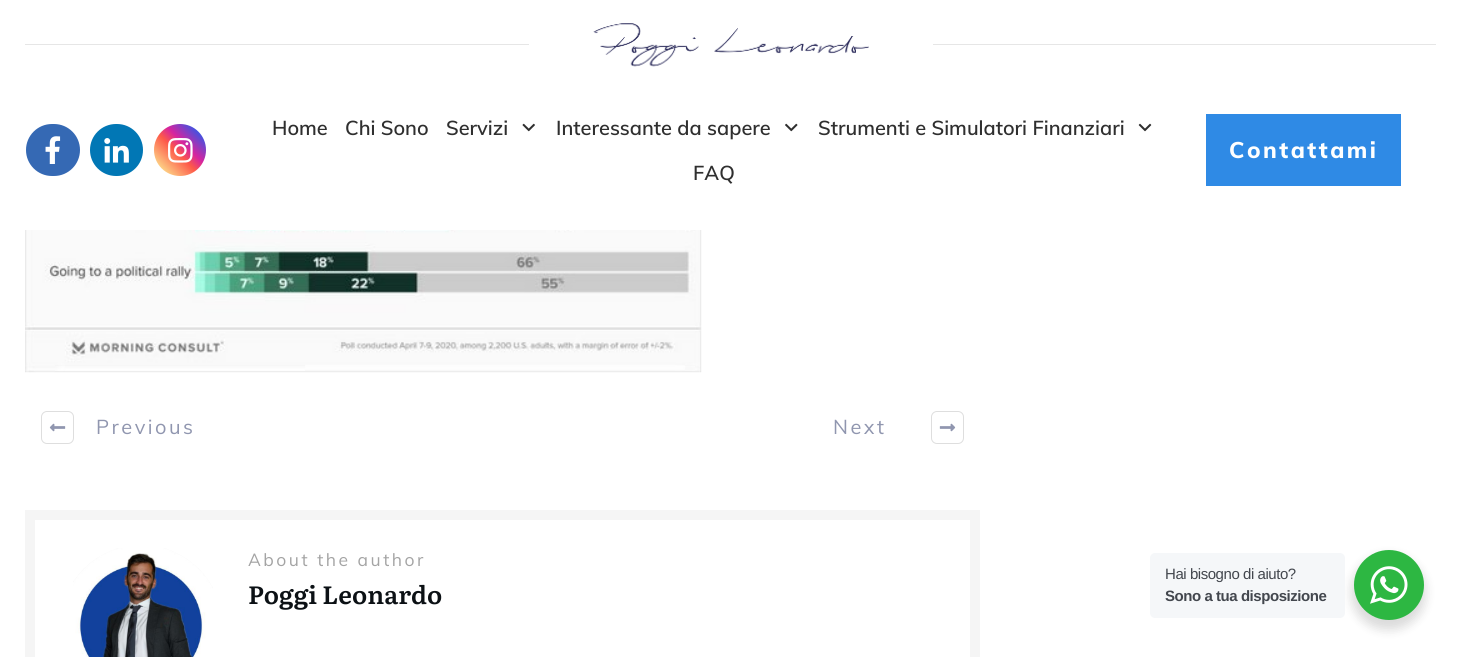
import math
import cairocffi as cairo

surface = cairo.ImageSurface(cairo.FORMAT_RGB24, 1461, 657)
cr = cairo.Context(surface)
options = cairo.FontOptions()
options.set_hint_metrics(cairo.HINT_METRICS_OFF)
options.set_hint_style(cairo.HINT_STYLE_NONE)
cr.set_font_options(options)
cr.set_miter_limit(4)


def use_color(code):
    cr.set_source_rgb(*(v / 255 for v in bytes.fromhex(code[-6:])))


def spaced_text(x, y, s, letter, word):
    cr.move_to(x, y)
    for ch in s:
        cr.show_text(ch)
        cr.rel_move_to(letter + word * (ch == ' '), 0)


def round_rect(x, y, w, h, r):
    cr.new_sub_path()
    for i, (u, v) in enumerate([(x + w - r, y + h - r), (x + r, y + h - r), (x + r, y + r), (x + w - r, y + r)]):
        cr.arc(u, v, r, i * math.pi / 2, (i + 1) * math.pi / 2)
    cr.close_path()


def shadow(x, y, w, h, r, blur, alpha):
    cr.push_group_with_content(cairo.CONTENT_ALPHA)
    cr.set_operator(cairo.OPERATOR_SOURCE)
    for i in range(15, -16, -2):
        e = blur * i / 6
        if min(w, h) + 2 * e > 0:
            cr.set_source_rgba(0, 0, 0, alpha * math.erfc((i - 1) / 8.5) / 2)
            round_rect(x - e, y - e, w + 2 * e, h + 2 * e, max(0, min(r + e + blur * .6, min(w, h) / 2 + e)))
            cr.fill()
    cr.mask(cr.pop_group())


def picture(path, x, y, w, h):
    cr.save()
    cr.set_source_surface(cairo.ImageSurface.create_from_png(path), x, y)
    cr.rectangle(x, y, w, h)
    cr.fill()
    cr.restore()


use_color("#ffffff")
cr.paint()
use_color("#e6e6e6")
cr.rectangle(25, 44, 504, 1)
cr.fill()
picture("img1.png", 593, 23, 276, 44)
cr.rectangle(933, 44, 503, 1)
cr.fill()
use_color("#3569b4")
round_rect(26, 124, 54, 52, 26)
cr.fill()
picture("img2.png", 45, 136, 16, 28)
use_color("#0177b5")
round_rect(90, 124, 53, 52, 26)
cr.fill()
picture("img3.png", 104, 138, 25, 25)
gradient = cairo.LinearGradient(154, 176, 206, 124)
gradient.add_color_stop_rgba(0, 0.992, 0.957, 0.592, 1)
gradient.add_color_stop_rgba(0.05, 0.992, 0.957, 0.592, 1)
gradient.add_color_stop_rgba(0.45, 0.992, 0.349, 0.286, 1)
gradient.add_color_stop_rgba(0.6, 0.839, 0.141, 0.624, 1)
gradient.add_color_stop_rgba(0.9, 0.157, 0.353, 0.922, 1)
cr.set_source(gradient)
cr.arc(180, 150, 26, 0, 2 * math.pi)
cr.fill()
picture("img4.png", 168, 138, 25, 25)
cr.select_font_face("Muli SemiBold")
cr.set_font_size(20)
use_color("#2f2f2f")
cr.move_to(272, 135)
cr.show_text("Home")
cr.move_to(345, 135)
cr.show_text("Chi Sono")
cr.move_to(446, 135)
cr.show_text("Servizi")
picture("img5.png", 522, 123, 13, 9)
cr.move_to(556, 135)
cr.show_text("Interessante da sapere")
picture("img6.png", 785, 123, 13, 9)
cr.move_to(818, 135)
cr.show_text("Strumenti e Simulatori Finanziari")
picture("img7.png", 1138, 123, 14, 9)
cr.move_to(693, 180)
cr.show_text("FAQ")
use_color("#2f8ae5")
cr.rectangle(1206, 114, 195, 72)
cr.fill()
cr.select_font_face("Muli ExtraBold")
cr.set_font_size(22.5)
use_color("#ffffff")
spaced_text(1229, 158, "Contattami", 2.5, 0)
picture("img8.png", 25, 230, 677, 143)
round_rect(41.5, 411.5, 32, 32, 5.5)
use_color("#dedede")
cr.set_line_width(1)
cr.stroke()
picture("img9.png", 49, 423, 17, 9)
cr.select_font_face("Muli")
cr.set_font_size(20)
use_color("#9096af")
spaced_text(96, 434, "Previous", 2.5, 0)
spaced_text(833, 434, "Next", 2.5, 0)
round_rect(931.5, 411.5, 32, 32, 5.5)
use_color("#dedede")
cr.stroke()
picture("img10.png", 939, 423, 17, 9)
use_color("#f5f5f5")
cr.rectangle(25, 510, 955, 147)
cr.fill()
use_color("#ffffff")
cr.rectangle(35, 520, 935, 137)
cr.fill()
picture("img11.png", 73, 548, 140, 109)
cr.set_font_size(17.5)
use_color("#a4a4a4")
spaced_text(248, 566, "About the author", 2.5, 0)
cr.select_font_face("Literata SemiBold")
cr.set_font_size(25)
use_color("#0c1115")
cr.move_to(248, 604)
cr.show_text("Poggi Leonardo")
use_color("#000000")
shadow(1351, 555, 75, 75, 37.5, 5, 0.14)
use_color("#f5f7f9")
round_rect(1150, 553, 195, 65, 5)
cr.fill()
cr.select_font_face("Liberation Sans")
cr.set_font_size(15)
use_color("#43474e")
spaced_text(1165, 579, "Hai bisogno di aiuto?", -0.45, 0)
cr.select_font_face("Liberation Sans", cairo.FONT_SLANT_NORMAL, cairo.FONT_WEIGHT_BOLD)
spaced_text(1165, 601, "Sono a tua disposizione", -0.45, 0)
use_color("#2db742")
cr.new_path()
cr.arc(1389, 585, 35, 0, 2 * math.pi)
cr.fill()
picture("img12.png", 1370, 566, 38, 38)
surface.write_to_png("result.png")
